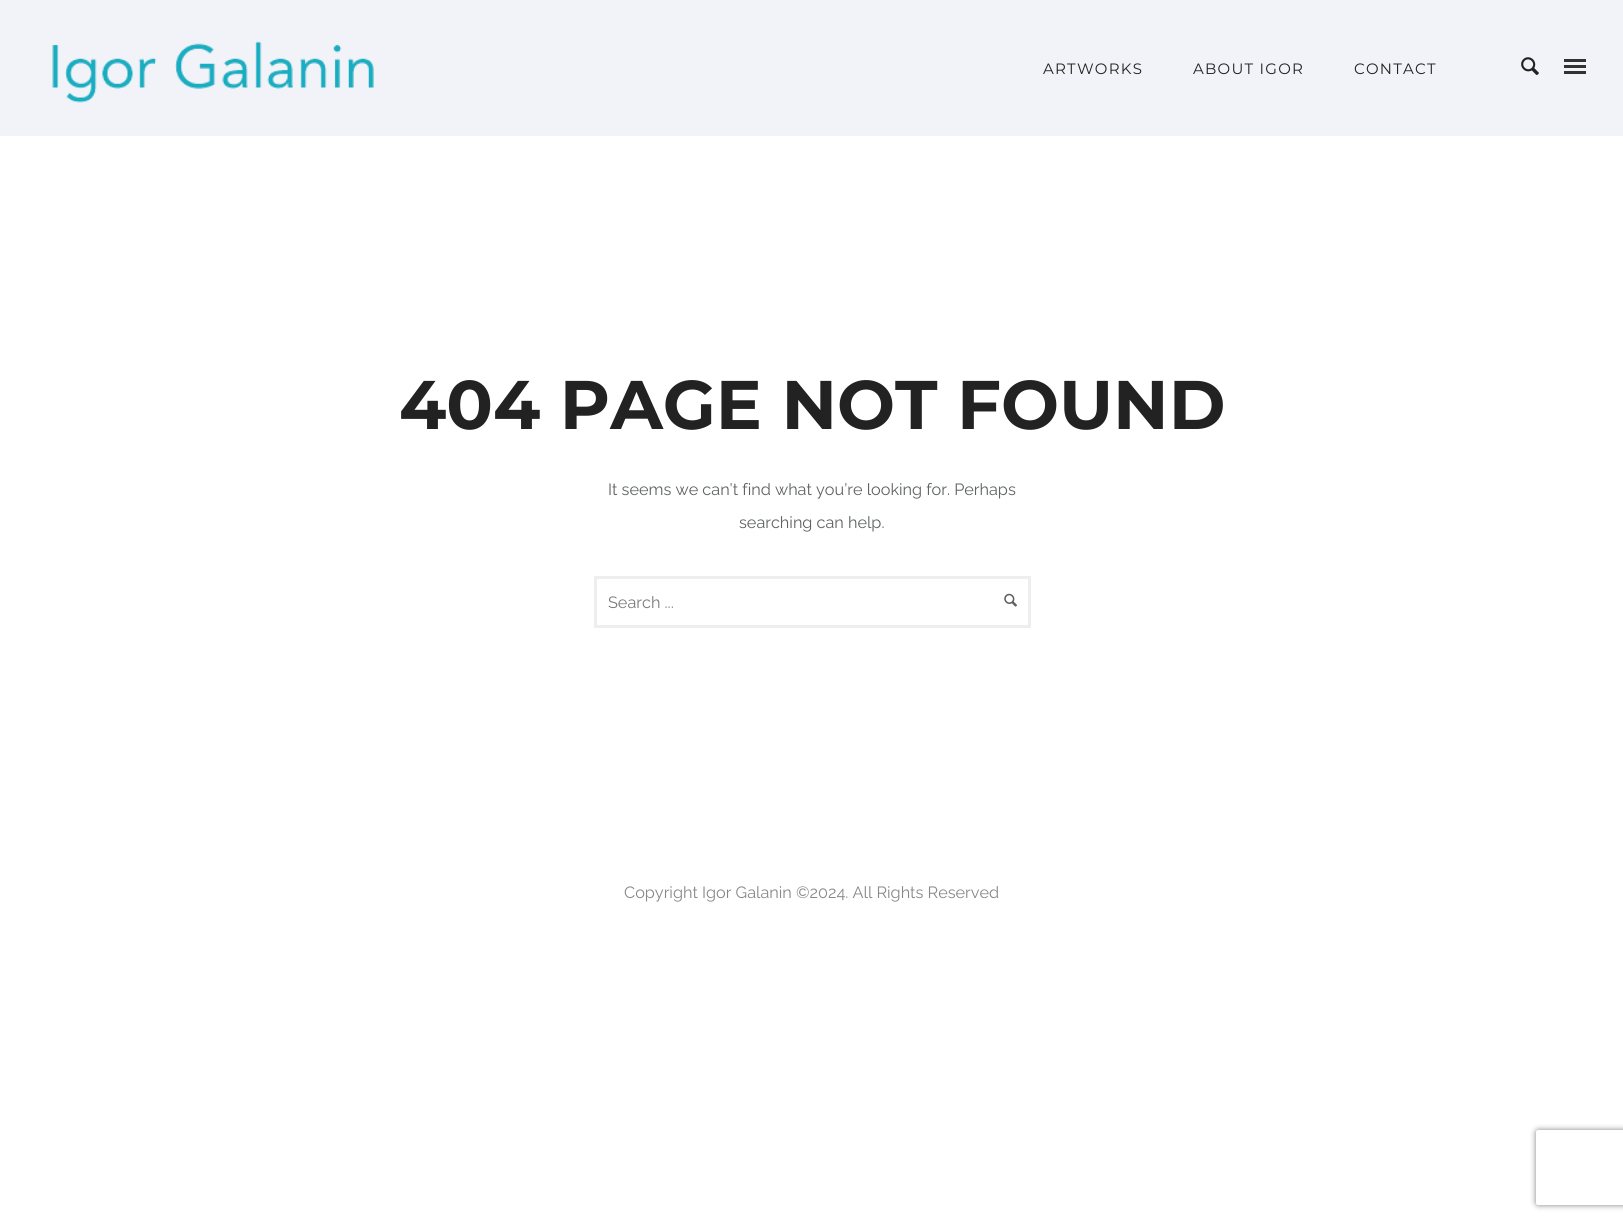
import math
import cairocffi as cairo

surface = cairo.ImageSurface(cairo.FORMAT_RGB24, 1623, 1222)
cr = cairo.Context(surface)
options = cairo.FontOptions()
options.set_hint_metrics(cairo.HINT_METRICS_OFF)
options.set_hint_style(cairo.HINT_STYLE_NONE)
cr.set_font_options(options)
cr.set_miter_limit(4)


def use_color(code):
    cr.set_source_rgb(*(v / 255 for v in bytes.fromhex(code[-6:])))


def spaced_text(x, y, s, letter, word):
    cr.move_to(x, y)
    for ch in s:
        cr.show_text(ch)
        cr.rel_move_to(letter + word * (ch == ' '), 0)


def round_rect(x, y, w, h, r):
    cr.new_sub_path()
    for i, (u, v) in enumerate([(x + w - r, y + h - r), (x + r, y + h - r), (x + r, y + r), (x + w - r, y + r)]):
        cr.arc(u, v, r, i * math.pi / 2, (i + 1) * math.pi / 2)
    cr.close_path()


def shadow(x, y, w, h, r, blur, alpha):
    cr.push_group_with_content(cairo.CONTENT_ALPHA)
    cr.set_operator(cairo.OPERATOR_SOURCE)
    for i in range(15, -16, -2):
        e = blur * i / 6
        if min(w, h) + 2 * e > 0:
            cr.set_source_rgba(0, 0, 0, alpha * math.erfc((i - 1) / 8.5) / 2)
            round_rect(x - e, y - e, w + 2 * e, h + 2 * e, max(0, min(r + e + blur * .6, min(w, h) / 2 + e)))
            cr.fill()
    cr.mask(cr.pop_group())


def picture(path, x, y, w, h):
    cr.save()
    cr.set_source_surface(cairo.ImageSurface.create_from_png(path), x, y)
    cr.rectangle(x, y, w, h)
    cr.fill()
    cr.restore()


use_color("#ffffff")
cr.paint()
use_color("#f2f3f8")
cr.rectangle(0, 0, 1623, 136)
cr.fill()
picture("img1.png", 52, 41, 322, 62)
cr.select_font_face("Montserrat")
cr.set_font_size(15)
use_color("#222222")
spaced_text(1043, 74, "ARTWORKS", 1.25, 0)
spaced_text(1193, 74, "ABOUT IGOR", 1.25, 0)
spaced_text(1354, 74, "CONTACT", 1.25, 0)
picture("img2.png", 1521, 57, 18, 18)
use_color("#323232")
cr.rectangle(1564, 59, 22, 3)
cr.fill()
cr.rectangle(1564, 65, 22, 3)
cr.fill()
cr.rectangle(1564, 71, 22, 3)
cr.fill()
cr.select_font_face("Montserrat", cairo.FONT_SLANT_NORMAL, cairo.FONT_WEIGHT_BOLD)
cr.set_font_size(68.75)
use_color("#222222")
cr.move_to(399, 429)
cr.show_text("404 PAGE NOT FOUND")
cr.select_font_face("Raleway")
cr.set_font_size(16.25)
use_color("#5f6263")
cr.move_to(608, 495)
cr.show_text("It seems we can’t find what you’re looking for. Perhaps")
cr.move_to(739, 528)
cr.show_text("searching can help.")
cr.rectangle(595.5, 577.5, 434, 49)
use_color("#eeeeee")
cr.set_line_width(3)
cr.stroke()
use_color("#7a7a7a")
cr.move_to(608, 608)
cr.show_text("Search ...")
picture("img3.png", 1004, 593, 13, 14)
use_color("#888888")
cr.move_to(624, 898)
cr.show_text("Copyright Igor Galanin ©2024. All Rights Reserved")
cr.save()
cr.set_fill_rule(cairo.FILL_RULE_EVEN_ODD)
cr.new_path()
cr.move_to(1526, 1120)
cr.line_to(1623, 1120)
cr.line_to(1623, 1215)
cr.line_to(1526, 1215)
cr.close_path()
cr.move_to(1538.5, 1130)
cr.line_to(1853.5, 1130)
cr.curve_to(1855, 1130, 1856, 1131, 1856, 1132.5)
cr.line_to(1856, 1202.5)
cr.curve_to(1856, 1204, 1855, 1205, 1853.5, 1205)
cr.line_to(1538.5, 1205)
cr.curve_to(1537, 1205, 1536, 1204, 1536, 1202.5)
cr.line_to(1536, 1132.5)
cr.curve_to(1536, 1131, 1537, 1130, 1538.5, 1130)
cr.close_path()
cr.clip()
use_color("#808080")
shadow(1536, 1130, 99, 75, 2.5, 3, 1)
cr.restore()
surface.write_to_png("result.png")
